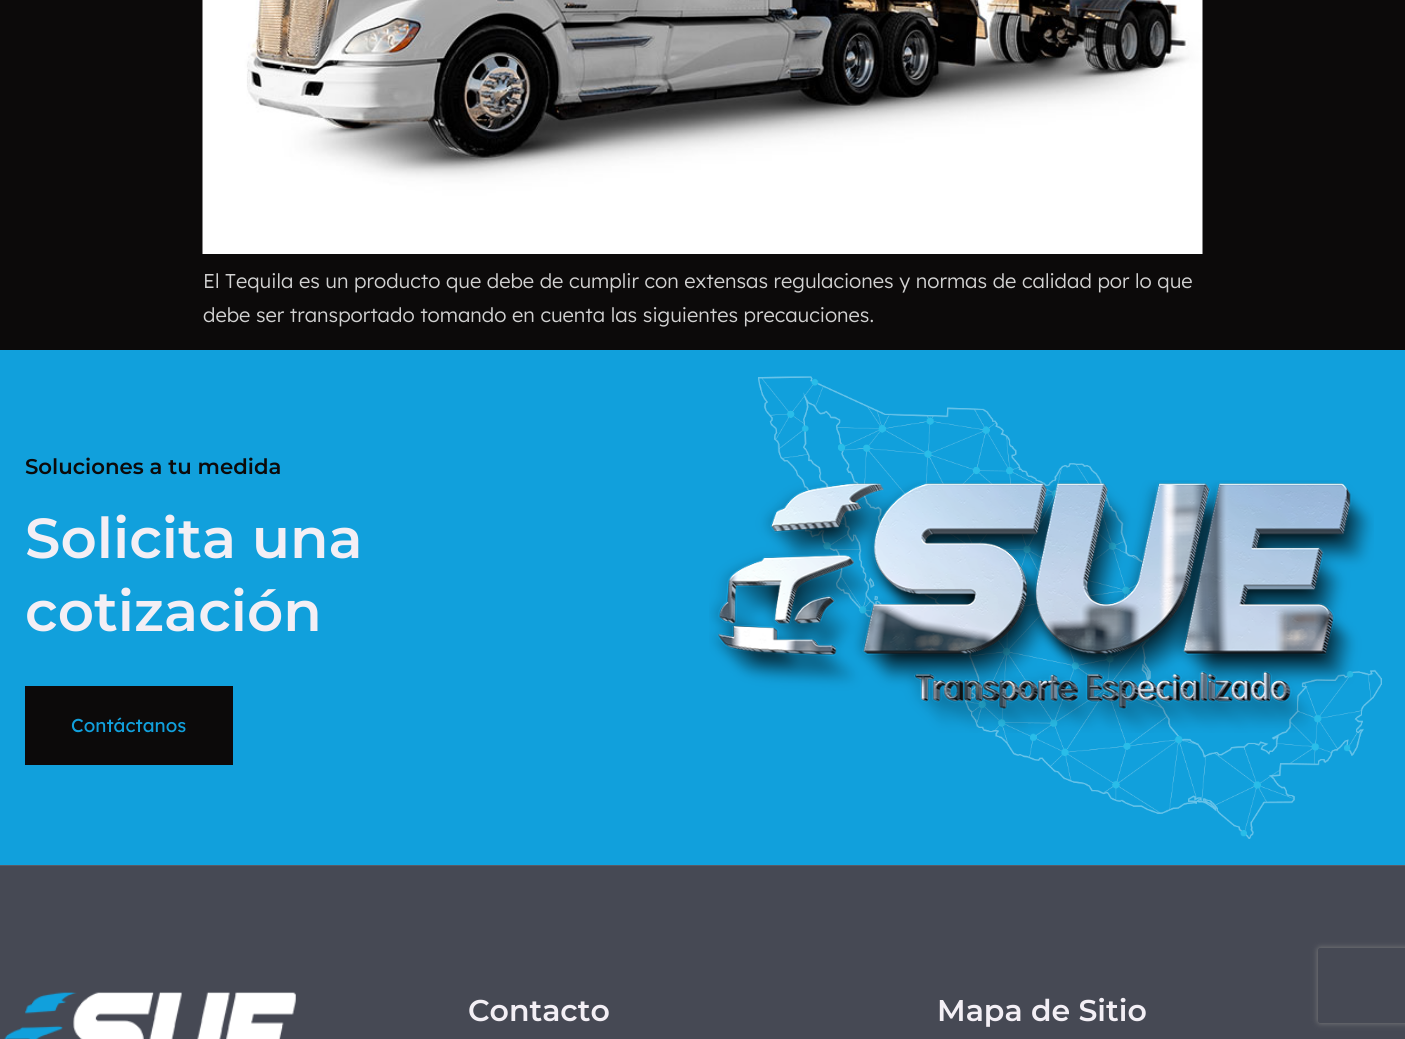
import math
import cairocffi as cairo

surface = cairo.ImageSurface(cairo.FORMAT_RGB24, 1405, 1039)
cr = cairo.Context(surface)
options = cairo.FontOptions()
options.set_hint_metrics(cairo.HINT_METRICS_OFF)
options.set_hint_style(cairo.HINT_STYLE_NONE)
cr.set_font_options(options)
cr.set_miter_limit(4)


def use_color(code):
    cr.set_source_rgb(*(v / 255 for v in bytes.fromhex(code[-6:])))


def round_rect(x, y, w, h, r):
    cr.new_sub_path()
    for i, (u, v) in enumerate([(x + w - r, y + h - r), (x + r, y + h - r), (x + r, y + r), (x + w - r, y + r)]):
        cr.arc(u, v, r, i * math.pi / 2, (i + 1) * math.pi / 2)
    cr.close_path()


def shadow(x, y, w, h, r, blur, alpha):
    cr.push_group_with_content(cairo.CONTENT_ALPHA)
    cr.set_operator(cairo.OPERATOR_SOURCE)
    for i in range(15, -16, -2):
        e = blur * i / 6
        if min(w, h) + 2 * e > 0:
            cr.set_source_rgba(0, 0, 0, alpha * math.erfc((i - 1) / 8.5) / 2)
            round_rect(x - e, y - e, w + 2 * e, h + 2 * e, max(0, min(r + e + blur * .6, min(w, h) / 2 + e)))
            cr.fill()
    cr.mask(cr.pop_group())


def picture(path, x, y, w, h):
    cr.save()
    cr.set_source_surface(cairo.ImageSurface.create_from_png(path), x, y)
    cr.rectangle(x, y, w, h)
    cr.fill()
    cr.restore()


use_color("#0c0a0a")
cr.paint()
picture("img1.png", 202, 0, 1001, 254)
cr.select_font_face("Lexend Light")
cr.set_font_size(20)
use_color("#d2d2d2")
cr.move_to(203, 288)
cr.show_text("El Tequila es un producto que debe de cumplir con extensas regulaciones y normas de calidad por lo que")
cr.move_to(203, 322)
cr.show_text("debe ser transportado tomando en cuenta las siguientes precauciones.")
use_color("#11a0dc")
cr.rectangle(0, 350, 1405, 515)
cr.fill()
cr.select_font_face("Montserrat SemiBold")
cr.set_font_size(21.25)
use_color("#0c0a0a")
cr.move_to(25, 474)
cr.show_text("Soluciones a tu medida")
cr.set_font_size(56.25)
use_color("#f3eff5")
cr.move_to(25, 558)
cr.show_text("Solicita una")
cr.move_to(25, 631)
cr.show_text("cotización")
use_color("#0c0a0a")
cr.rectangle(25, 686, 208, 79)
cr.fill()
cr.select_font_face("Lexend")
cr.set_font_size(18.75)
use_color("#11a0dc")
cr.move_to(71, 732)
cr.show_text("Contáctanos")
picture("img3.png", 758, 376, 624, 463)
picture("img2.png", 709, 480, 665, 253)
use_color("#464954")
cr.rectangle(0, 866, 1405, 173)
cr.fill()
use_color("#595b65")
cr.rectangle(0, 865, 1405, 1)
cr.fill()
picture("img4.png", 4, 992, 292, 47)
cr.select_font_face("Montserrat SemiBold")
cr.set_font_size(30)
use_color("#f3eff5")
cr.move_to(468, 1021)
cr.show_text("Contacto")
cr.move_to(937, 1021)
cr.show_text("Mapa de Sitio")
cr.save()
cr.set_fill_rule(cairo.FILL_RULE_EVEN_ODD)
cr.new_path()
cr.move_to(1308, 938)
cr.line_to(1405, 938)
cr.line_to(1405, 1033)
cr.line_to(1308, 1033)
cr.close_path()
cr.move_to(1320.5, 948)
cr.line_to(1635.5, 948)
cr.curve_to(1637, 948, 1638, 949, 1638, 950.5)
cr.line_to(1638, 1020.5)
cr.curve_to(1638, 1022, 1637, 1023, 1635.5, 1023)
cr.line_to(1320.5, 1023)
cr.curve_to(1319, 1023, 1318, 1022, 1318, 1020.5)
cr.line_to(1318, 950.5)
cr.curve_to(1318, 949, 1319, 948, 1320.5, 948)
cr.close_path()
cr.clip()
use_color("#808080")
shadow(1318, 948, 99, 75, 2.5, 3, 1)
cr.restore()
surface.write_to_png("result.png")
